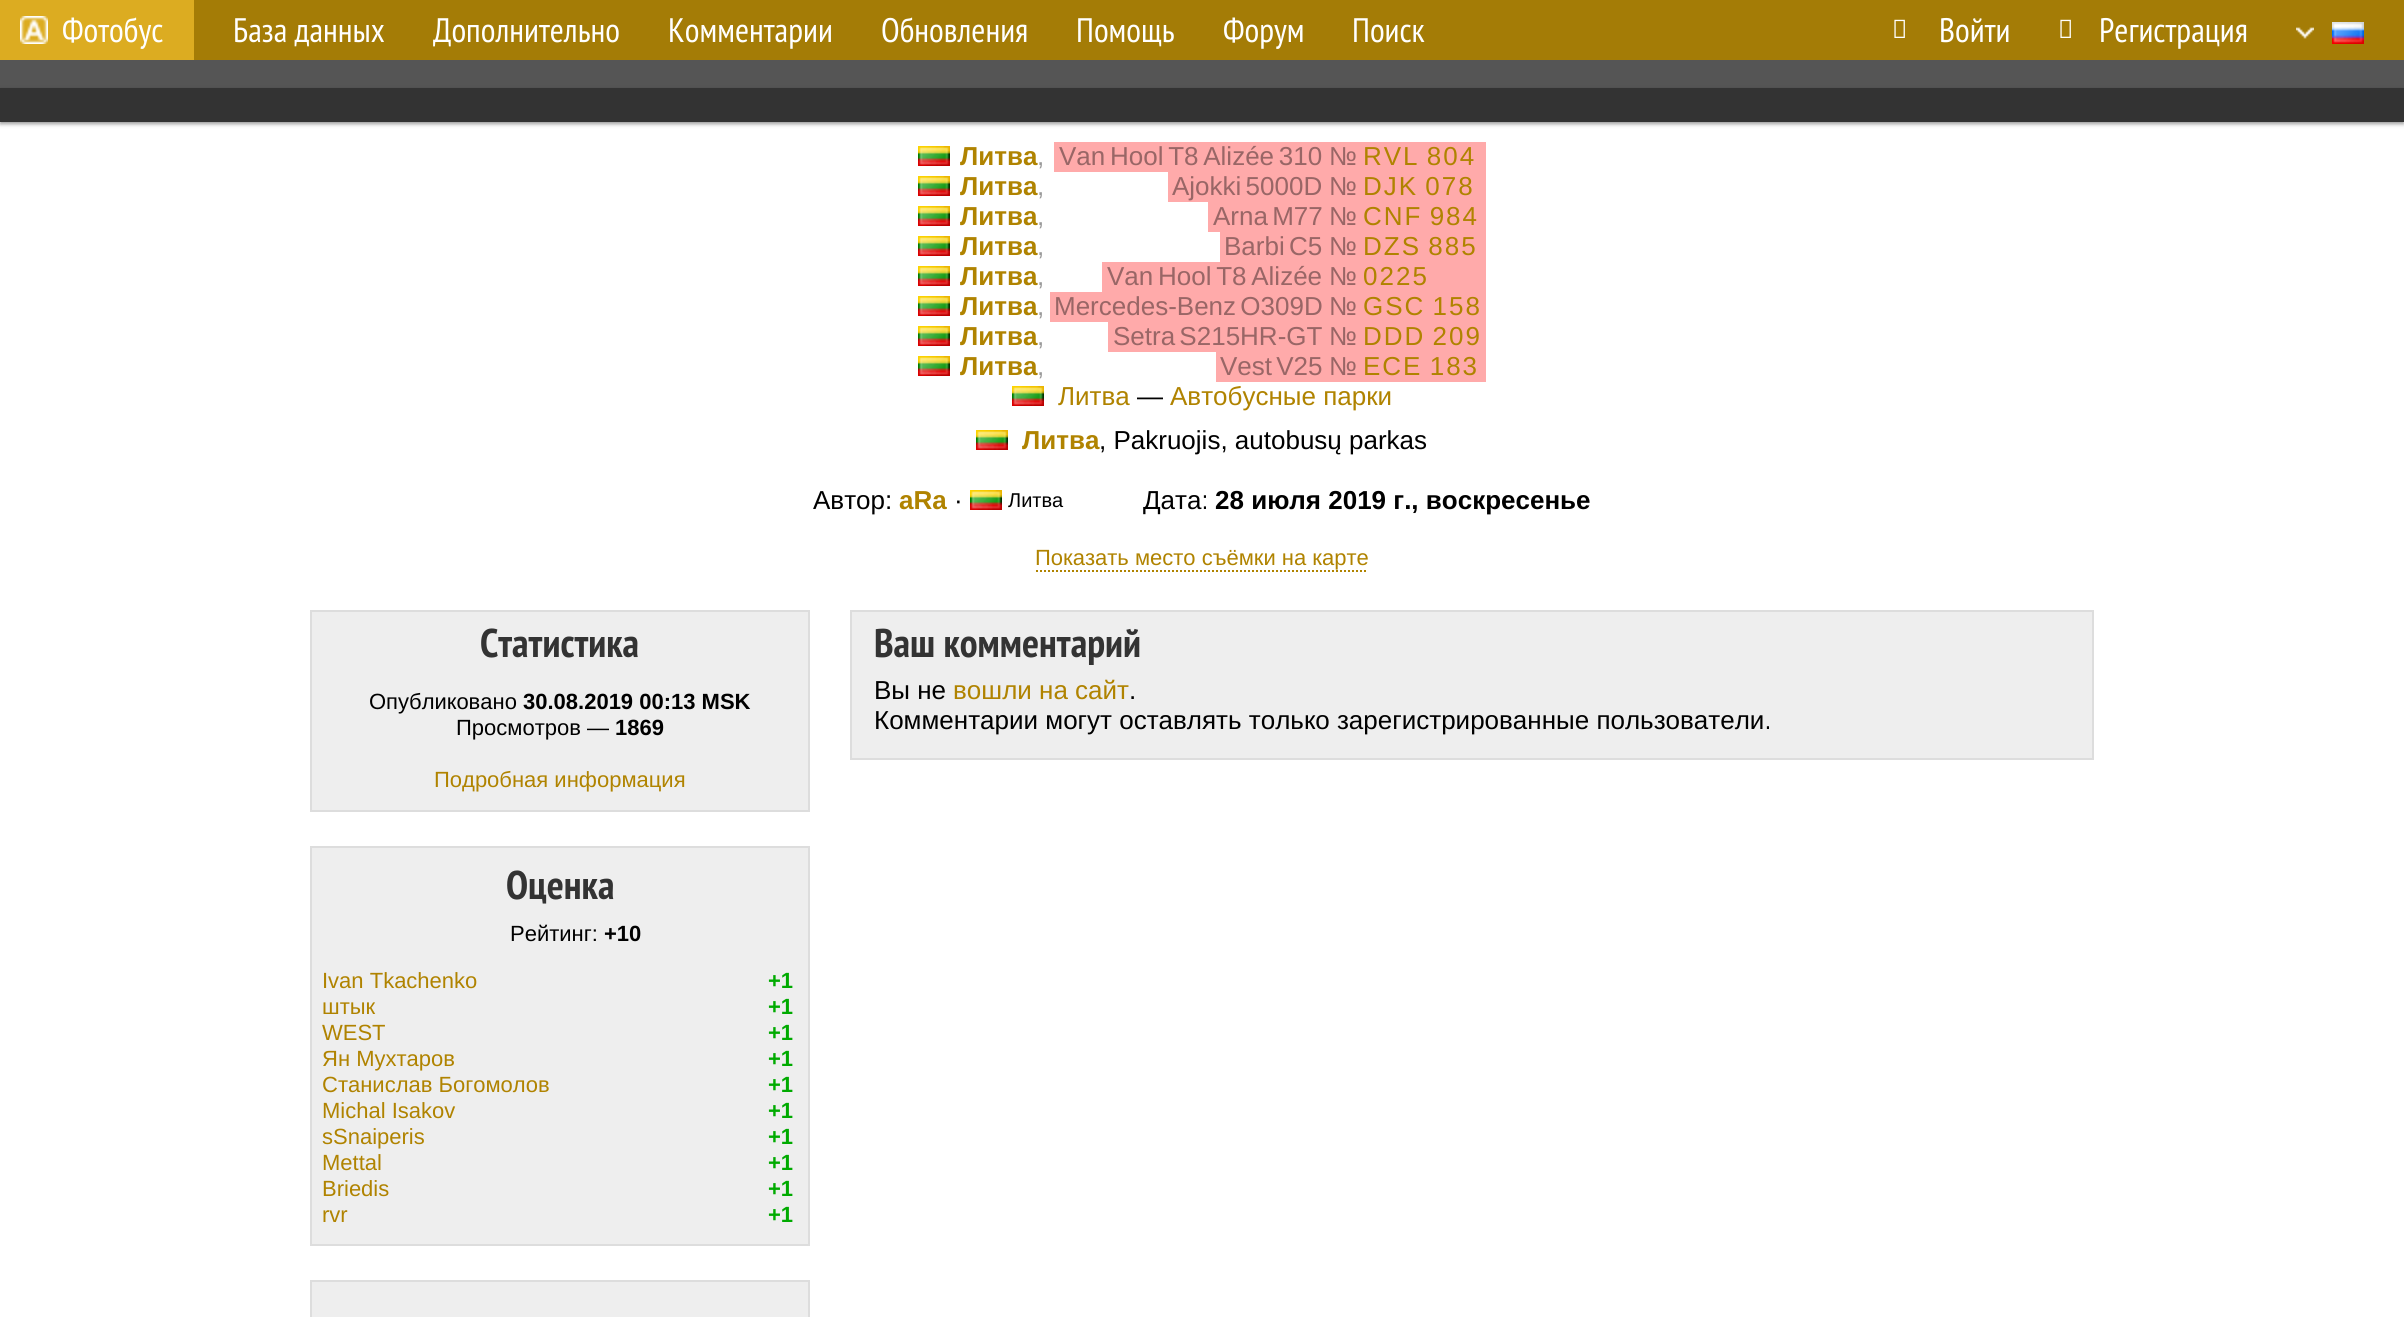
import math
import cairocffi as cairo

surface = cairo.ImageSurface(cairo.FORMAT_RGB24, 2404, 1317)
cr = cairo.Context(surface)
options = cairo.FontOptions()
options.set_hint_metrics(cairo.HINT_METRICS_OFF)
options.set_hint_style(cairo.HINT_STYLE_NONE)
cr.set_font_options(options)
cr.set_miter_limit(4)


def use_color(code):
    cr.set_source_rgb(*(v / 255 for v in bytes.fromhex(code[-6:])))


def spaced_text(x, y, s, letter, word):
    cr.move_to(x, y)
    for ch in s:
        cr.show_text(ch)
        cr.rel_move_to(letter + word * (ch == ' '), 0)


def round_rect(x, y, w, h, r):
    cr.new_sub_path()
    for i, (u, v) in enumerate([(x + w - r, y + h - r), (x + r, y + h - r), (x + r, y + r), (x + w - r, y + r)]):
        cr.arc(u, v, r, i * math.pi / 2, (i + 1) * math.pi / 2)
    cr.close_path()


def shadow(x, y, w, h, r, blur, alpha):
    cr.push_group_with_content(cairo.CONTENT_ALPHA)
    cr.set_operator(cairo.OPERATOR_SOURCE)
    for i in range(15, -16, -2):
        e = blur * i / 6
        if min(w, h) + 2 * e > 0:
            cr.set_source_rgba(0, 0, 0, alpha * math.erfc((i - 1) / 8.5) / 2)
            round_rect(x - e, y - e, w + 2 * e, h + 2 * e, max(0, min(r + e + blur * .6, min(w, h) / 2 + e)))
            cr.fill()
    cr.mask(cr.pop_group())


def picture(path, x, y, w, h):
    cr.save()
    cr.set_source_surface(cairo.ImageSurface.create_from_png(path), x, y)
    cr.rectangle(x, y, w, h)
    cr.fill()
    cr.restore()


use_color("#ffffff")
cr.paint()
use_color("#a47c06")
cr.rectangle(194, 0, 2210, 60)
cr.fill()
use_color("#dcac21")
cr.rectangle(0, 0, 194, 60)
cr.fill()
picture("img1.png", 20, 16, 28, 28)
cr.select_font_face("PT Sans Narrow")
cr.set_font_size(34)
use_color("#ffffff")
cr.move_to(62, 42)
cr.show_text("Фотобус")
cr.move_to(233, 42)
cr.show_text("База данных")
cr.move_to(433, 42)
cr.show_text("Дополнительно")
cr.move_to(668, 42)
cr.show_text("Комментарии")
cr.move_to(881, 42)
cr.show_text("Обновления")
cr.move_to(1076, 42)
cr.show_text("Помощь")
cr.move_to(1223, 42)
cr.show_text("Форум")
cr.move_to(1352, 42)
cr.show_text("Поиск")
picture("img2.png", 1894, 19, 11, 19)
cr.move_to(1939, 42)
cr.show_text("Войти")
picture("img2.png", 2060, 19, 11, 19)
cr.move_to(2099, 42)
cr.show_text("Регистрация")
picture("img3.png", 2296, 27, 18, 12)
picture("img4.png", 2332, 22, 32, 22)
use_color("#555555")
cr.rectangle(0, 60, 2404, 28)
cr.fill()
use_color("#000000")
shadow(0, 90, 2404, 34, 0, 2, 0.4)
use_color("#333333")
cr.rectangle(0, 88, 2404, 34)
cr.fill()
picture("img5.png", 918, 146, 32, 20)
cr.select_font_face("Liberation Sans", cairo.FONT_SLANT_NORMAL, cairo.FONT_WEIGHT_BOLD)
cr.set_font_size(26)
use_color("#b08300")
cr.move_to(960, 165)
cr.show_text("Литва")
cr.select_font_face("Liberation Sans")
use_color("#999999")
cr.move_to(1037, 165)
cr.show_text(",")
use_color("#ffaaaa")
cr.rectangle(1054, 142, 270, 30)
cr.fill()
use_color("#996666")
spaced_text(1059, 165, "Van Hool T8 Alizée 310", 0, -2.5)
use_color("#ffaaaa")
cr.rectangle(1324, 142, 162, 240)
cr.fill()
use_color("#996666")
cr.move_to(1329, 165)
cr.show_text("№")
use_color("#b08300")
spaced_text(1363, 165, "RVL 804", 2, -2)
picture("img5.png", 918, 176, 32, 20)
cr.select_font_face("Liberation Sans", cairo.FONT_SLANT_NORMAL, cairo.FONT_WEIGHT_BOLD)
cr.move_to(960, 195)
cr.show_text("Литва")
cr.select_font_face("Liberation Sans")
use_color("#999999")
cr.move_to(1037, 195)
cr.show_text(",")
use_color("#ffaaaa")
cr.rectangle(1168, 172, 156, 30)
cr.fill()
use_color("#996666")
spaced_text(1172, 195, "Ajokki 5000D", 0, -3)
cr.move_to(1329, 195)
cr.show_text("№")
use_color("#b08300")
spaced_text(1363, 195, "DJK 078", 2, -2)
picture("img5.png", 918, 206, 32, 20)
cr.select_font_face("Liberation Sans", cairo.FONT_SLANT_NORMAL, cairo.FONT_WEIGHT_BOLD)
cr.move_to(960, 225)
cr.show_text("Литва")
cr.select_font_face("Liberation Sans")
use_color("#999999")
cr.move_to(1037, 225)
cr.show_text(",")
use_color("#ffaaaa")
cr.rectangle(1208, 202, 116, 30)
cr.fill()
use_color("#996666")
spaced_text(1213, 225, "Arna M77", 0, -3)
cr.move_to(1329, 225)
cr.show_text("№")
use_color("#b08300")
spaced_text(1363, 225, "CNF 984", 2, -2)
picture("img5.png", 918, 236, 32, 20)
cr.select_font_face("Liberation Sans", cairo.FONT_SLANT_NORMAL, cairo.FONT_WEIGHT_BOLD)
cr.move_to(960, 255)
cr.show_text("Литва")
cr.select_font_face("Liberation Sans")
use_color("#999999")
cr.move_to(1037, 255)
cr.show_text(",")
use_color("#ffaaaa")
cr.rectangle(1220, 232, 104, 30)
cr.fill()
use_color("#996666")
spaced_text(1224, 255, "Barbi C5", 0, -3)
cr.move_to(1329, 255)
cr.show_text("№")
use_color("#b08300")
spaced_text(1363, 255, "DZS 885", 2, -2)
picture("img5.png", 918, 266, 32, 20)
cr.select_font_face("Liberation Sans", cairo.FONT_SLANT_NORMAL, cairo.FONT_WEIGHT_BOLD)
cr.move_to(960, 285)
cr.show_text("Литва")
cr.select_font_face("Liberation Sans")
use_color("#999999")
cr.move_to(1037, 285)
cr.show_text(",")
use_color("#ffaaaa")
cr.rectangle(1102, 262, 222, 30)
cr.fill()
use_color("#996666")
spaced_text(1107, 285, "Van Hool T8 Alizée", 0, -2.5)
cr.move_to(1329, 285)
cr.show_text("№")
use_color("#b08300")
spaced_text(1363, 285, "0225", 2, 0)
picture("img5.png", 918, 296, 32, 20)
cr.select_font_face("Liberation Sans", cairo.FONT_SLANT_NORMAL, cairo.FONT_WEIGHT_BOLD)
cr.move_to(960, 315)
cr.show_text("Литва")
cr.select_font_face("Liberation Sans")
use_color("#999999")
cr.move_to(1037, 315)
cr.show_text(",")
use_color("#ffaaaa")
cr.rectangle(1050, 292, 274, 30)
cr.fill()
use_color("#996666")
spaced_text(1054, 315, "Mercedes-Benz O309D", 0, -3)
cr.move_to(1329, 315)
cr.show_text("№")
use_color("#b08300")
spaced_text(1363, 315, "GSC 158", 2, -2)
picture("img5.png", 918, 326, 32, 20)
cr.select_font_face("Liberation Sans", cairo.FONT_SLANT_NORMAL, cairo.FONT_WEIGHT_BOLD)
cr.move_to(960, 345)
cr.show_text("Литва")
cr.select_font_face("Liberation Sans")
use_color("#999999")
cr.move_to(1037, 345)
cr.show_text(",")
use_color("#ffaaaa")
cr.rectangle(1108, 322, 216, 30)
cr.fill()
use_color("#996666")
spaced_text(1113, 345, "Setra S215HR-GT", 0, -3)
cr.move_to(1329, 345)
cr.show_text("№")
use_color("#b08300")
spaced_text(1363, 345, "DDD 209", 2, -2)
picture("img6.png", 918, 356, 32, 20)
cr.select_font_face("Liberation Sans", cairo.FONT_SLANT_NORMAL, cairo.FONT_WEIGHT_BOLD)
cr.move_to(960, 375)
cr.show_text("Литва")
cr.select_font_face("Liberation Sans")
use_color("#999999")
cr.move_to(1037, 375)
cr.show_text(",")
use_color("#ffaaaa")
cr.rectangle(1216, 352, 108, 30)
cr.fill()
use_color("#996666")
spaced_text(1220, 375, "Vest V25", 0, -3)
cr.move_to(1329, 375)
cr.show_text("№")
use_color("#b08300")
spaced_text(1363, 375, "ECE 183", 2, -2)
picture("img5.png", 1012, 386, 32, 20)
cr.move_to(1058, 405)
cr.show_text("Литва")
use_color("#000000")
cr.move_to(1137, 405)
cr.show_text("—")
use_color("#b08300")
cr.move_to(1170, 405)
cr.show_text("Автобусные парки")
picture("img5.png", 976, 430, 32, 20)
cr.select_font_face("Liberation Sans", cairo.FONT_SLANT_NORMAL, cairo.FONT_WEIGHT_BOLD)
cr.move_to(1022, 449)
cr.show_text("Литва")
cr.select_font_face("Liberation Sans")
use_color("#000000")
cr.move_to(1099, 449)
cr.show_text(", Pakruojis, autobusų parkas")
cr.move_to(813, 509)
cr.show_text("Автор:")
cr.select_font_face("Liberation Sans", cairo.FONT_SLANT_NORMAL, cairo.FONT_WEIGHT_BOLD)
use_color("#b08300")
cr.move_to(899, 509)
cr.show_text("aRa")
cr.select_font_face("Liberation Sans")
use_color("#000000")
cr.move_to(954, 509)
cr.show_text("·")
picture("img5.png", 970, 490, 32, 20)
cr.set_font_size(20)
cr.move_to(1008, 507)
cr.show_text("Литва")
cr.set_font_size(26)
cr.move_to(1143, 509)
cr.show_text("Дата:")
cr.select_font_face("Liberation Sans", cairo.FONT_SLANT_NORMAL, cairo.FONT_WEIGHT_BOLD)
cr.move_to(1215, 509)
cr.show_text("28 июля 2019 г., воскресенье")
cr.select_font_face("Liberation Sans")
cr.set_font_size(22)
use_color("#b08300")
cr.move_to(1035, 565)
cr.show_text("Показать место съёмки на карте")
cr.new_path()
cr.move_to(1036, 571)
cr.line_to(1368, 571)
cr.set_dash([2, 2])
cr.stroke()
use_color("#eeeeee")
cr.rectangle(311, 611, 498, 200)
cr.fill_preserve()
use_color("#dddddd")
cr.set_dash([])
cr.stroke()
cr.select_font_face("PT Sans Narrow", cairo.FONT_SLANT_NORMAL, cairo.FONT_WEIGHT_BOLD)
cr.set_font_size(40)
use_color("#333333")
cr.move_to(480, 657)
cr.show_text("Статистика")
cr.select_font_face("Liberation Sans")
cr.set_font_size(22)
use_color("#000000")
cr.move_to(369, 709)
cr.show_text("Опубликовано")
cr.select_font_face("Liberation Sans", cairo.FONT_SLANT_NORMAL, cairo.FONT_WEIGHT_BOLD)
cr.move_to(523, 709)
cr.show_text("30.08.2019 00:13 MSK")
cr.select_font_face("Liberation Sans")
cr.move_to(456, 735)
cr.show_text("Просмотров —")
cr.select_font_face("Liberation Sans", cairo.FONT_SLANT_NORMAL, cairo.FONT_WEIGHT_BOLD)
cr.move_to(615, 735)
cr.show_text("1869")
cr.select_font_face("Liberation Sans")
use_color("#b08300")
cr.move_to(434, 787)
cr.show_text("Подробная информация")
use_color("#eeeeee")
cr.rectangle(311, 847, 498, 398)
cr.fill_preserve()
use_color("#dddddd")
cr.stroke()
cr.select_font_face("PT Sans Narrow", cairo.FONT_SLANT_NORMAL, cairo.FONT_WEIGHT_BOLD)
cr.set_font_size(40)
use_color("#333333")
cr.move_to(506, 899)
cr.show_text("Оценка")
cr.select_font_face("Liberation Sans")
cr.set_font_size(22)
use_color("#000000")
cr.move_to(510, 941)
cr.show_text("Рейтинг:")
cr.select_font_face("Liberation Sans", cairo.FONT_SLANT_NORMAL, cairo.FONT_WEIGHT_BOLD)
cr.move_to(604, 941)
cr.show_text("+10")
cr.select_font_face("Liberation Sans")
use_color("#b08300")
cr.move_to(322, 988)
cr.show_text("Ivan Tkachenko")
cr.select_font_face("Liberation Sans", cairo.FONT_SLANT_NORMAL, cairo.FONT_WEIGHT_BOLD)
use_color("#00aa00")
cr.move_to(768, 988)
cr.show_text("+1")
cr.select_font_face("Liberation Sans")
use_color("#b08300")
cr.move_to(322, 1014)
cr.show_text("штык")
cr.select_font_face("Liberation Sans", cairo.FONT_SLANT_NORMAL, cairo.FONT_WEIGHT_BOLD)
use_color("#00aa00")
cr.move_to(768, 1014)
cr.show_text("+1")
cr.select_font_face("Liberation Sans")
use_color("#b08300")
cr.move_to(322, 1040)
cr.show_text("WEST")
cr.select_font_face("Liberation Sans", cairo.FONT_SLANT_NORMAL, cairo.FONT_WEIGHT_BOLD)
use_color("#00aa00")
cr.move_to(768, 1040)
cr.show_text("+1")
cr.select_font_face("Liberation Sans")
use_color("#b08300")
cr.move_to(322, 1066)
cr.show_text("Ян Мухтаров")
cr.select_font_face("Liberation Sans", cairo.FONT_SLANT_NORMAL, cairo.FONT_WEIGHT_BOLD)
use_color("#00aa00")
cr.move_to(768, 1066)
cr.show_text("+1")
cr.select_font_face("Liberation Sans")
use_color("#b08300")
cr.move_to(322, 1092)
cr.show_text("Станислав Богомолов")
cr.select_font_face("Liberation Sans", cairo.FONT_SLANT_NORMAL, cairo.FONT_WEIGHT_BOLD)
use_color("#00aa00")
cr.move_to(768, 1092)
cr.show_text("+1")
cr.select_font_face("Liberation Sans")
use_color("#b08300")
cr.move_to(322, 1118)
cr.show_text("Michal Isakov")
cr.select_font_face("Liberation Sans", cairo.FONT_SLANT_NORMAL, cairo.FONT_WEIGHT_BOLD)
use_color("#00aa00")
cr.move_to(768, 1118)
cr.show_text("+1")
cr.select_font_face("Liberation Sans")
use_color("#b08300")
cr.move_to(322, 1144)
cr.show_text("sSnaiperis")
cr.select_font_face("Liberation Sans", cairo.FONT_SLANT_NORMAL, cairo.FONT_WEIGHT_BOLD)
use_color("#00aa00")
cr.move_to(768, 1144)
cr.show_text("+1")
cr.select_font_face("Liberation Sans")
use_color("#b08300")
cr.move_to(322, 1170)
cr.show_text("Mettal")
cr.select_font_face("Liberation Sans", cairo.FONT_SLANT_NORMAL, cairo.FONT_WEIGHT_BOLD)
use_color("#00aa00")
cr.move_to(768, 1170)
cr.show_text("+1")
cr.select_font_face("Liberation Sans")
use_color("#b08300")
cr.move_to(322, 1196)
cr.show_text("Briedis")
cr.select_font_face("Liberation Sans", cairo.FONT_SLANT_NORMAL, cairo.FONT_WEIGHT_BOLD)
use_color("#00aa00")
cr.move_to(768, 1196)
cr.show_text("+1")
cr.select_font_face("Liberation Sans")
use_color("#b08300")
cr.move_to(322, 1222)
cr.show_text("rvr")
cr.select_font_face("Liberation Sans", cairo.FONT_SLANT_NORMAL, cairo.FONT_WEIGHT_BOLD)
use_color("#00aa00")
cr.move_to(768, 1222)
cr.show_text("+1")
use_color("#eeeeee")
cr.rectangle(311, 1281, 498, 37)
cr.fill_preserve()
use_color("#dddddd")
cr.stroke()
use_color("#eeeeee")
cr.rectangle(851, 611, 1242, 148)
cr.fill_preserve()
use_color("#dddddd")
cr.stroke()
cr.select_font_face("PT Sans Narrow", cairo.FONT_SLANT_NORMAL, cairo.FONT_WEIGHT_BOLD)
cr.set_font_size(40)
use_color("#333333")
cr.move_to(874, 657)
cr.show_text("Ваш комментарий")
cr.select_font_face("Liberation Sans")
cr.set_font_size(26)
use_color("#000000")
cr.move_to(874, 699)
cr.show_text("Вы не")
use_color("#b08300")
cr.move_to(953, 699)
cr.show_text("вошли на сайт")
use_color("#000000")
cr.move_to(1129, 699)
cr.show_text(".")
cr.move_to(874, 729)
cr.show_text("Комментарии могут оставлять только зарегистрированные пользователи.")
surface.write_to_png("result.png")
